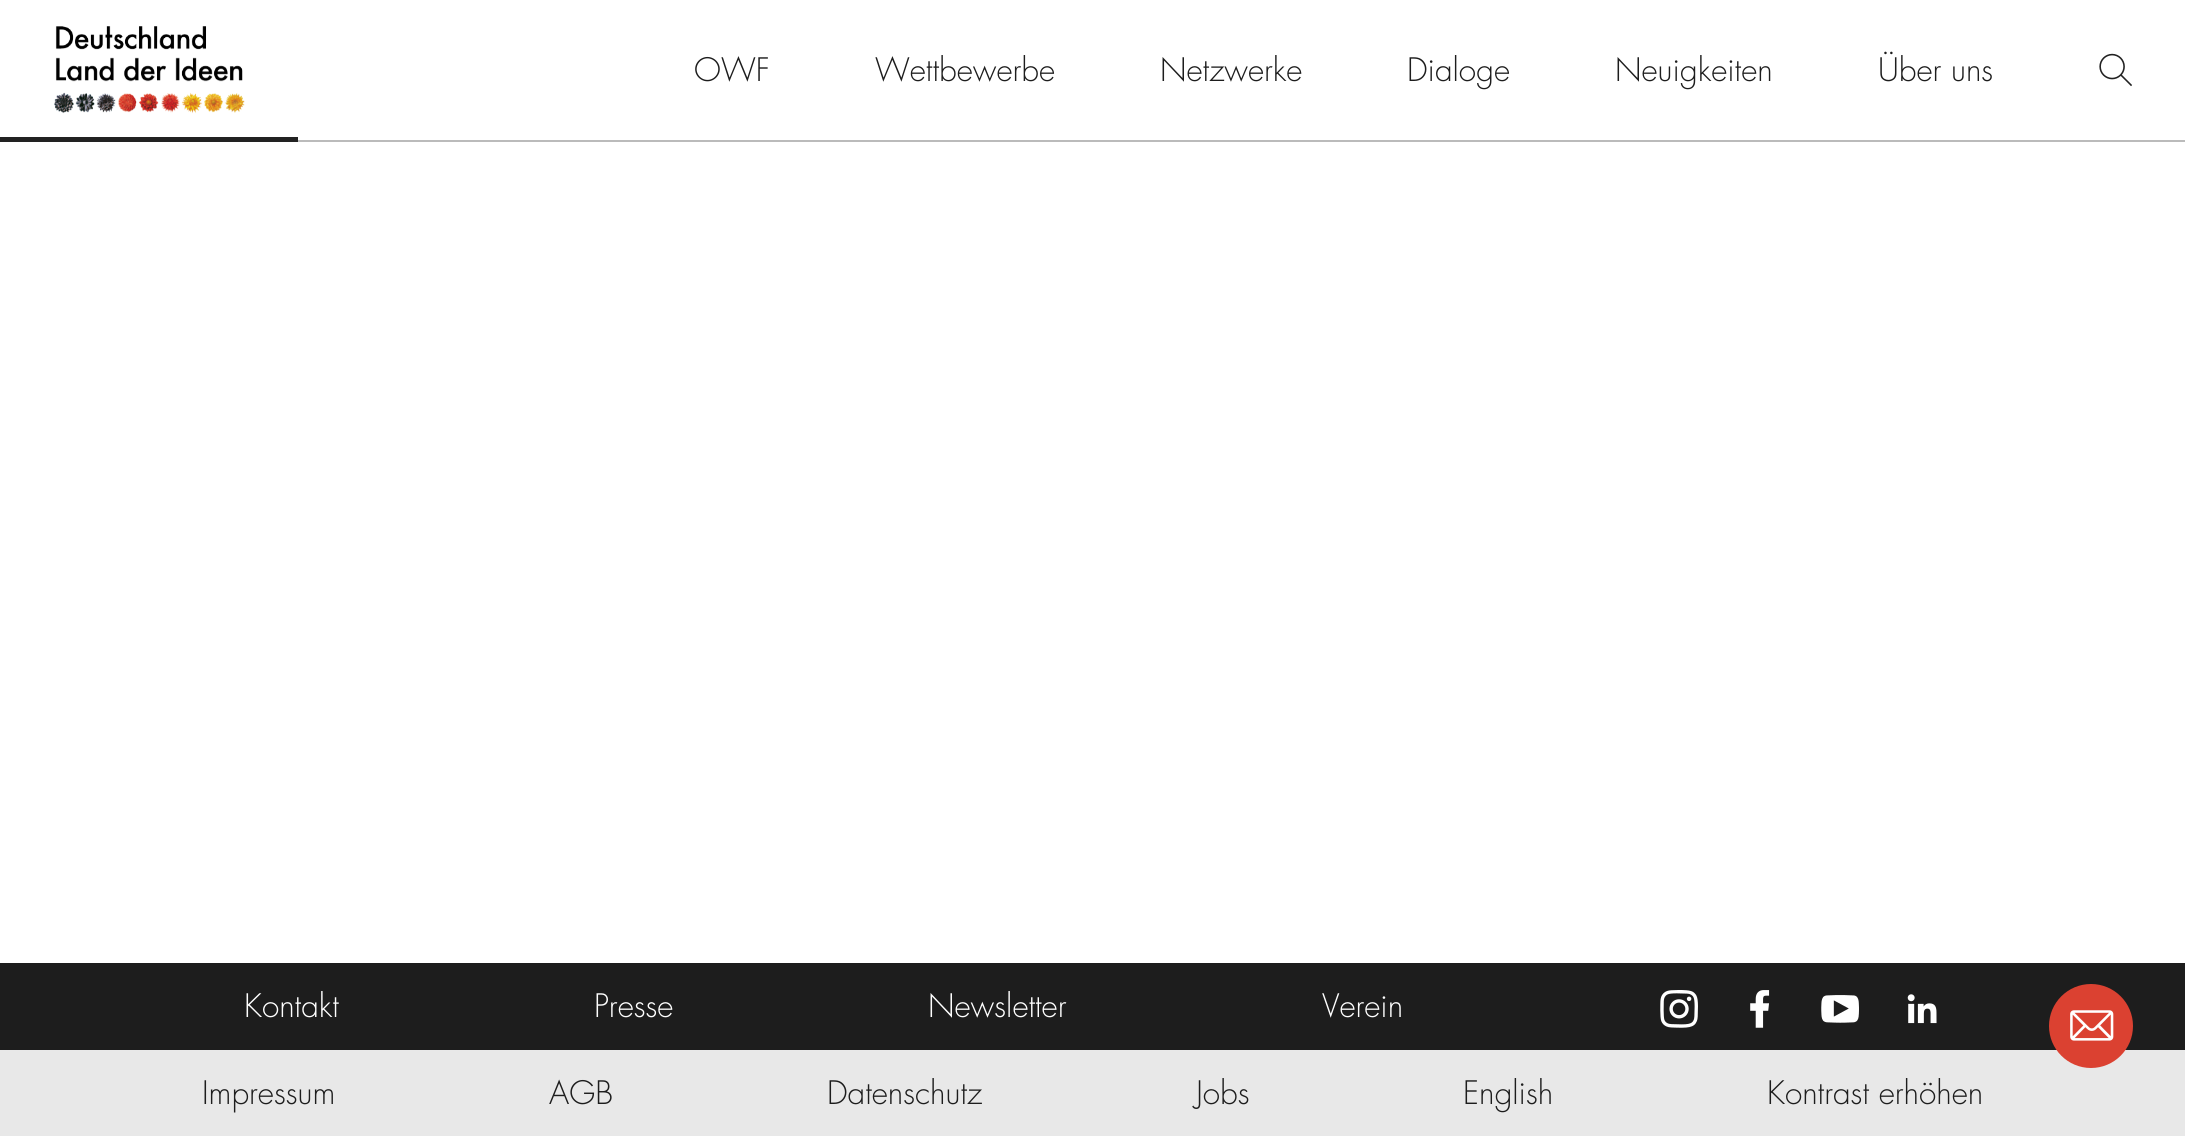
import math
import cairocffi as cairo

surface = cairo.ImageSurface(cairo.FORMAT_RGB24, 2185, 1136)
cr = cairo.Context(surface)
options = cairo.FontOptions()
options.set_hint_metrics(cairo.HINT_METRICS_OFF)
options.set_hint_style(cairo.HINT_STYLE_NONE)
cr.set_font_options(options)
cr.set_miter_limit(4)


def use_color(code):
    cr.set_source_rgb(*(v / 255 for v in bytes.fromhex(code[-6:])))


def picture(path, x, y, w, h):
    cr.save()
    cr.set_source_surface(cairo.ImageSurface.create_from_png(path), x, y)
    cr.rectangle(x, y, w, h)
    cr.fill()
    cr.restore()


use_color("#ffffff")
cr.paint()
use_color("#bbbbbb")
cr.rectangle(298, 140, 1887, 2)
cr.fill()
picture("img1.png", 54, 26, 191, 88)
use_color("#222222")
cr.rectangle(0, 137, 298, 5)
cr.fill()
cr.select_font_face("Futura Light")
cr.set_font_size(31.5)
use_color("#1d1d1d")
cr.move_to(694, 81)
cr.show_text("OWF")
cr.move_to(875, 81)
cr.show_text("Wettbewerbe")
cr.move_to(1160, 81)
cr.show_text("Netzwerke")
cr.move_to(1407, 81)
cr.show_text("Dialoge")
cr.move_to(1615, 81)
cr.show_text("Neuigkeiten")
cr.move_to(1878, 81)
cr.show_text("Über uns")
picture("img2.png", 2099, 53, 33, 34)
cr.rectangle(0, 963, 2185, 87)
cr.fill()
use_color("#ffffff")
cr.move_to(244, 1017)
cr.show_text("Kontakt")
cr.move_to(594, 1017)
cr.show_text("Presse")
cr.move_to(928, 1017)
cr.show_text("Newsletter")
cr.move_to(1322, 1017)
cr.show_text("Verein")
picture("img3.png", 1660, 990, 38, 38)
picture("img4.png", 1750, 990, 20, 38)
picture("img5.png", 1821, 995, 38, 28)
picture("img6.png", 1907, 994, 30, 30)
use_color("#e8e8e8")
cr.rectangle(0, 1050, 2185, 86)
cr.fill()
use_color("#1d1d1d")
cr.move_to(202, 1104)
cr.show_text("Impressum")
cr.move_to(549, 1104)
cr.show_text("AGB")
cr.move_to(827, 1104)
cr.show_text("Datenschutz")
cr.move_to(1196, 1104)
cr.show_text("Jobs")
cr.move_to(1463, 1104)
cr.show_text("English")
cr.move_to(1767, 1104)
cr.show_text("Kontrast erhöhen")
use_color("#db4131")
cr.new_path()
cr.arc(2091, 1026, 42, 0, 2 * math.pi)
cr.fill()
picture("img7.png", 2070, 1010, 44, 31)
surface.write_to_png("result.png")
